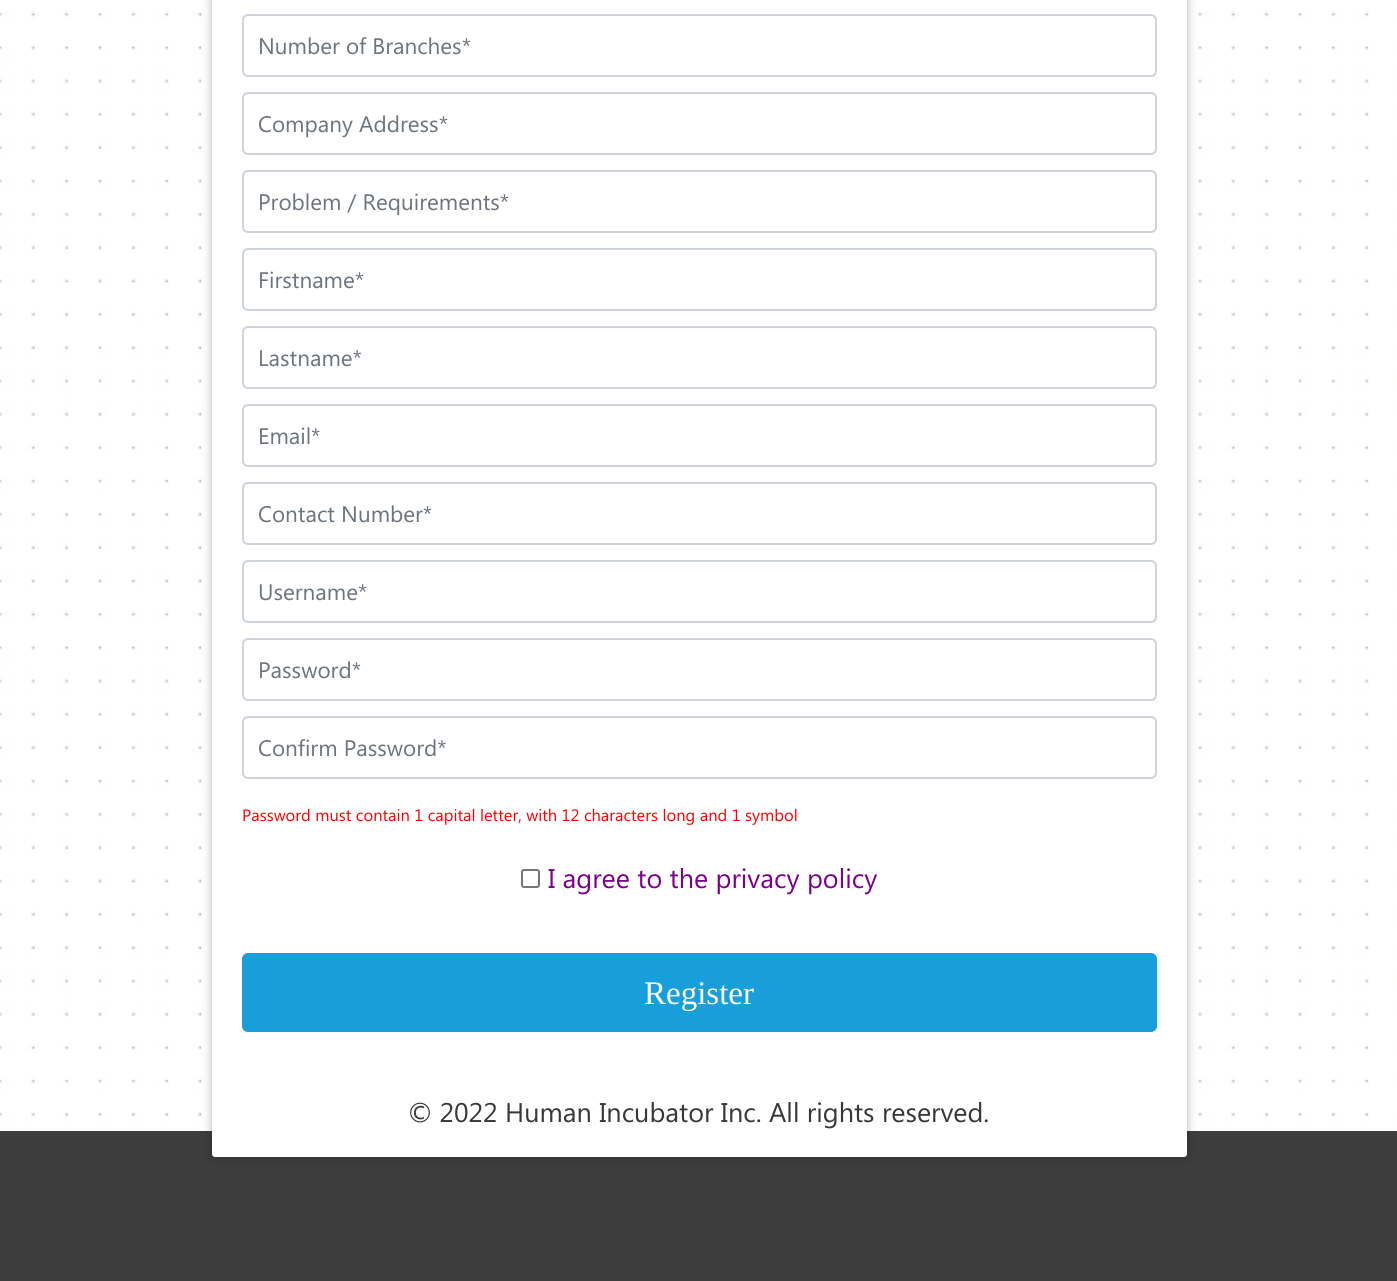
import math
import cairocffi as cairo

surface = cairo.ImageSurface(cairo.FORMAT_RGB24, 1397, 1281)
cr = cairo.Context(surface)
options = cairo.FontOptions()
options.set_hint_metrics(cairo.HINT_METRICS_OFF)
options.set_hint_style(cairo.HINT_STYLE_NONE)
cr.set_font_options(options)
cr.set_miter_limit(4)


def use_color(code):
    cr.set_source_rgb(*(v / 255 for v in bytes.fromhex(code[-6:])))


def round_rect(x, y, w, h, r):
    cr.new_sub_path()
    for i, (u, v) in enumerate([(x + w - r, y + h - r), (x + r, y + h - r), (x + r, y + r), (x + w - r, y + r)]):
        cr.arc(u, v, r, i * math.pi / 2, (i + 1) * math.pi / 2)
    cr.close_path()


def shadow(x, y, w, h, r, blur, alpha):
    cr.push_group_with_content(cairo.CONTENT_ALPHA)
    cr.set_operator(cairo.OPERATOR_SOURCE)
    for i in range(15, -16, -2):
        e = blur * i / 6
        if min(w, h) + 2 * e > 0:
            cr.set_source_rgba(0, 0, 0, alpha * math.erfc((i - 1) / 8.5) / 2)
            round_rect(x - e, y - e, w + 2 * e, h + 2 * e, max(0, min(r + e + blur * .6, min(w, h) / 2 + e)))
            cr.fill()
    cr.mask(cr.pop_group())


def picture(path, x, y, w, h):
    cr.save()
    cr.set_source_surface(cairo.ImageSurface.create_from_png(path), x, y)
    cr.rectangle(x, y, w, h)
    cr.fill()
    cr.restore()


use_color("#3d3d3d")
cr.paint()
picture("img1.png", 0, 0, 1397, 1131)
use_color("#000000")
shadow(212, -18, 975, 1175, 3, 5, 0.29)
use_color("#ffffff")
round_rect(212, -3, 975, 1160, 3)
cr.fill()
round_rect(243, 15, 913, 61, 5)
use_color("#ced4da")
cr.stroke()
cr.select_font_face("Segoe UI")
cr.set_font_size(22.5)
use_color("#6c757d")
cr.move_to(258, 54)
cr.show_text("Number of Branches*")
round_rect(243, 93, 913, 61, 5)
use_color("#ced4da")
cr.stroke()
use_color("#6c757d")
cr.move_to(258, 132)
cr.show_text("Company Address*")
round_rect(243, 171, 913, 61, 5)
use_color("#ced4da")
cr.stroke()
use_color("#6c757d")
cr.move_to(258, 210)
cr.show_text("Problem / Requirements*")
round_rect(243, 249, 913, 61, 5)
use_color("#ced4da")
cr.stroke()
use_color("#6c757d")
cr.move_to(258, 288)
cr.show_text("Firstname*")
round_rect(243, 327, 913, 61, 5)
use_color("#ced4da")
cr.stroke()
use_color("#6c757d")
cr.move_to(258, 366)
cr.show_text("Lastname*")
round_rect(243, 405, 913, 61, 5)
use_color("#ced4da")
cr.stroke()
use_color("#6c757d")
cr.move_to(258, 444)
cr.show_text("Email*")
round_rect(243, 483, 913, 61, 5)
use_color("#ced4da")
cr.stroke()
use_color("#6c757d")
cr.move_to(258, 522)
cr.show_text("Contact Number*")
round_rect(243, 561, 913, 61, 5)
use_color("#ced4da")
cr.stroke()
use_color("#6c757d")
cr.move_to(258, 600)
cr.show_text("Username*")
round_rect(243, 639, 913, 61, 5)
use_color("#ced4da")
cr.stroke()
use_color("#6c757d")
cr.move_to(258, 678)
cr.show_text("Password*")
round_rect(243, 717, 913, 61, 5)
use_color("#ced4da")
cr.stroke()
use_color("#6c757d")
cr.move_to(258, 756)
cr.show_text("Confirm Password*")
cr.set_font_size(16.5)
use_color("#ff0000")
cr.move_to(242, 821)
cr.show_text("Password must contain 1 capital letter, with 12 characters long and 1 symbol")
round_rect(522, 870, 17, 17, 2)
use_color("#767676")
cr.stroke()
cr.set_font_size(27)
use_color("#7c008c")
cr.move_to(548, 888)
cr.show_text("I agree to the privacy policy")
use_color("#189fda")
round_rect(242, 953, 915, 79, 6)
cr.fill()
cr.select_font_face("Liberation Serif")
cr.set_font_size(33)
use_color("#ffffff")
cr.move_to(644, 1004)
cr.show_text("Register")
cr.select_font_face("Segoe UI")
cr.set_font_size(27)
use_color("#383838")
cr.move_to(408, 1122)
cr.show_text("© 2022 Human Incubator Inc. All rights reserved.")
surface.write_to_png("result.png")
